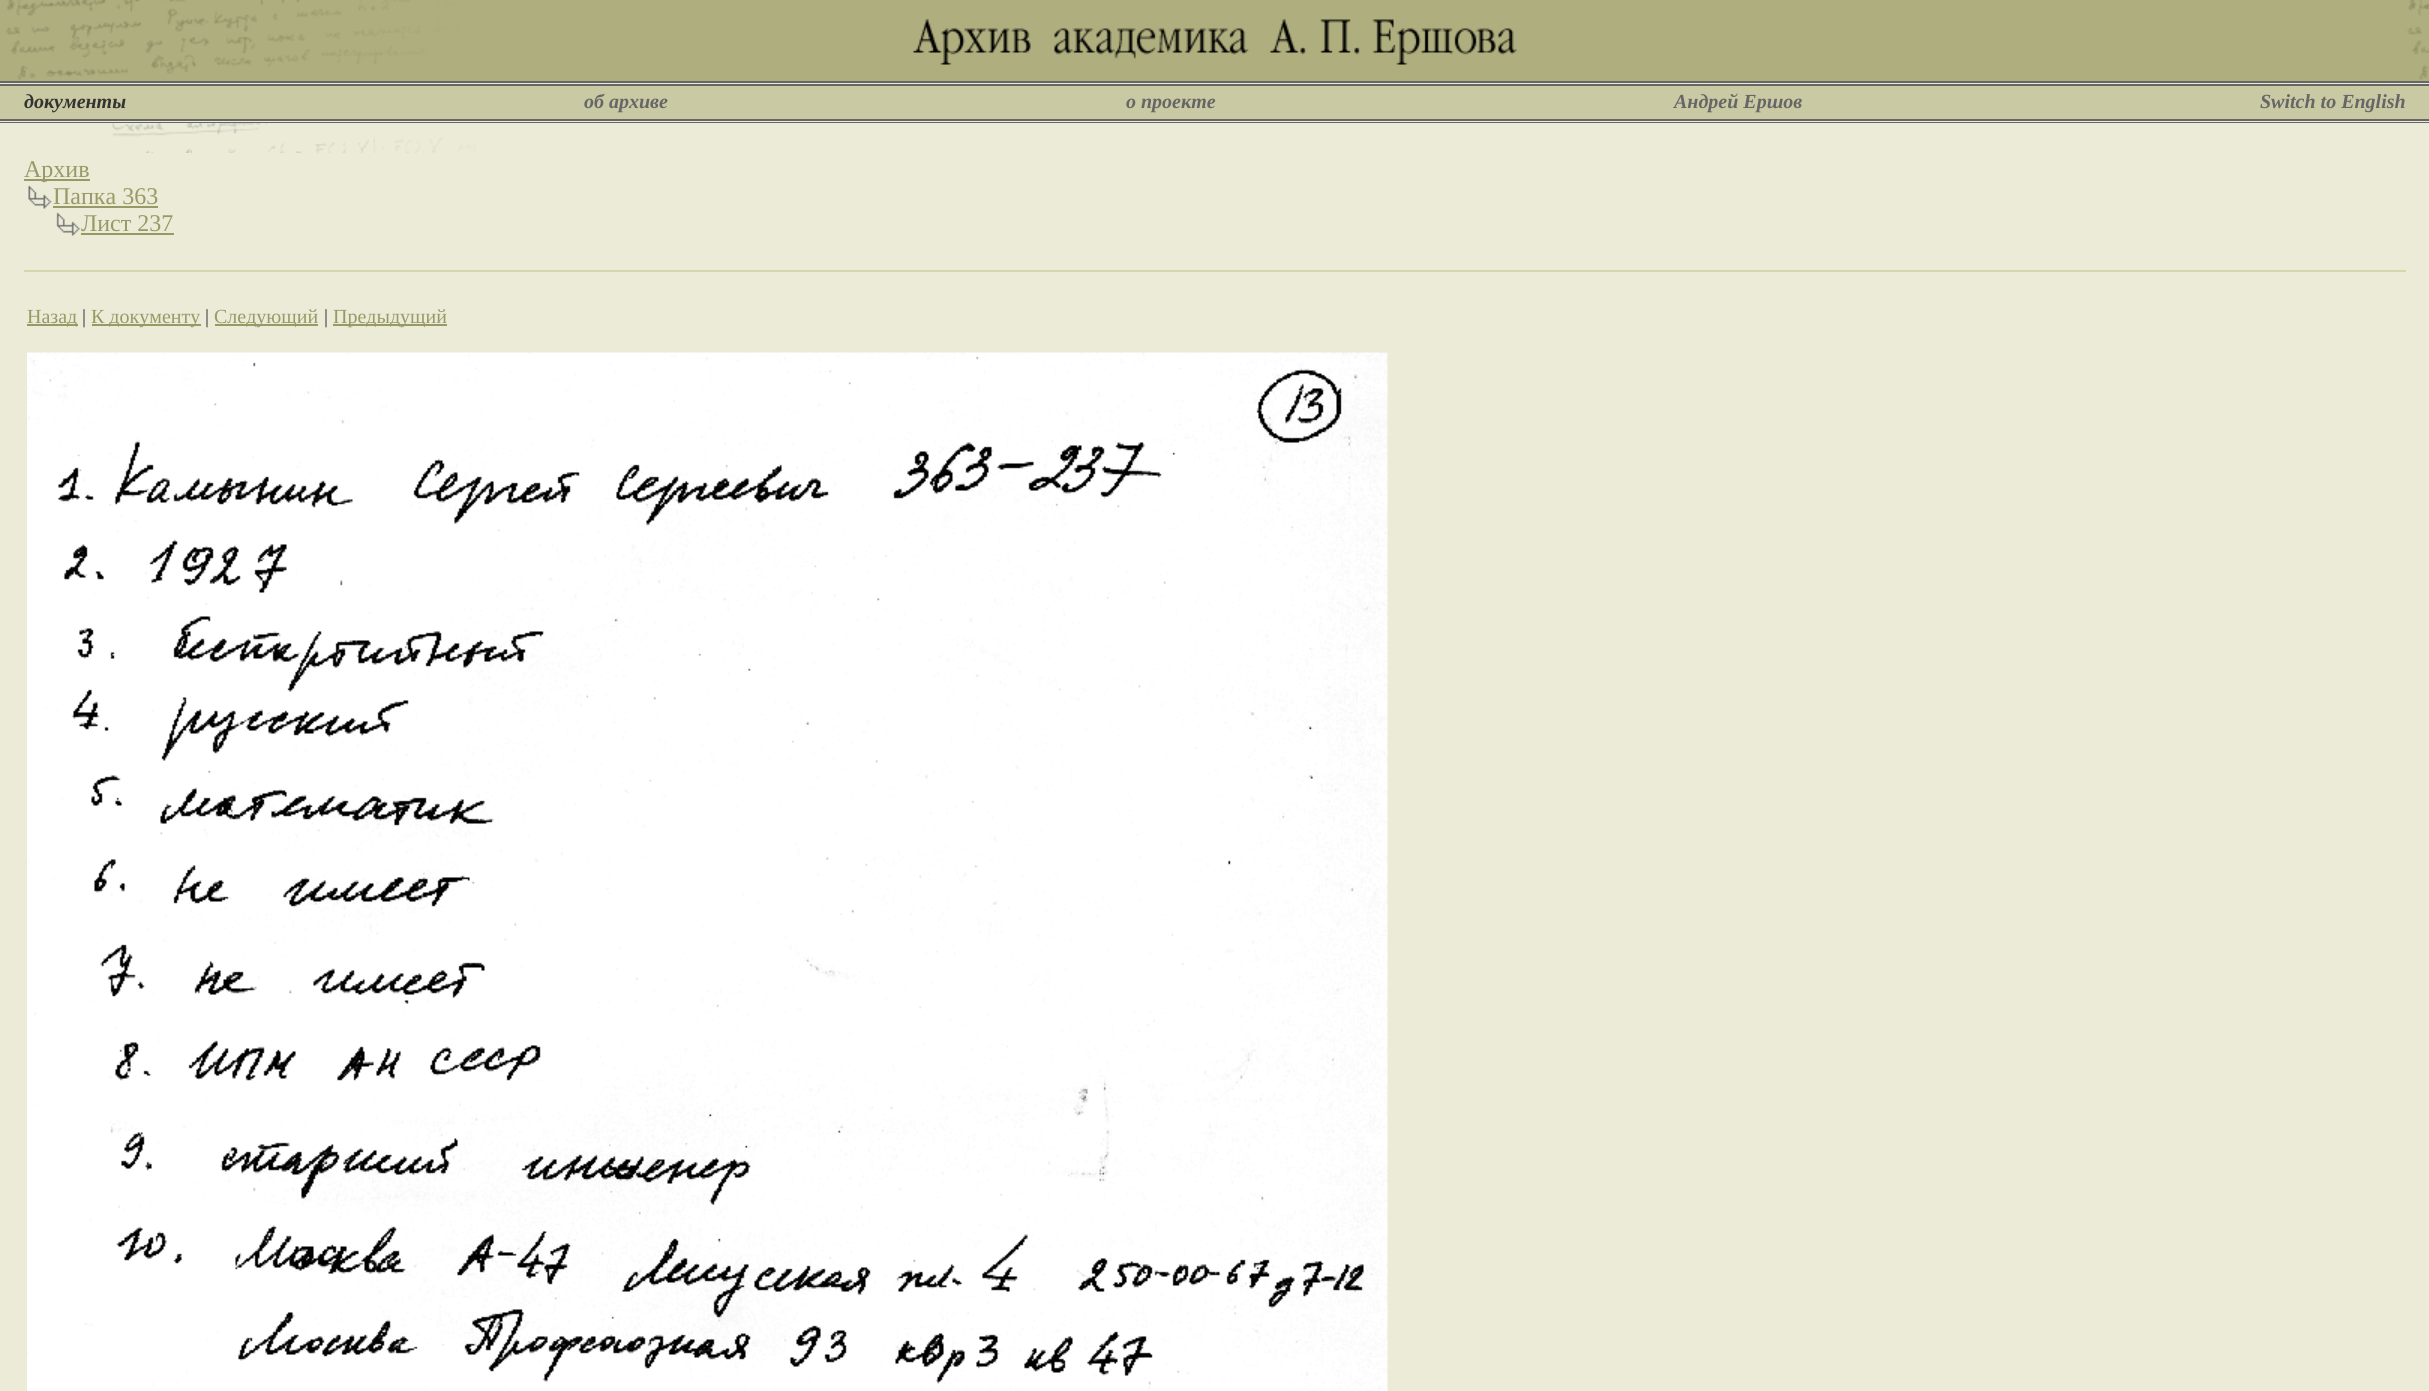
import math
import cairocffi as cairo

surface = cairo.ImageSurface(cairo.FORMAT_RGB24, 2429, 1391)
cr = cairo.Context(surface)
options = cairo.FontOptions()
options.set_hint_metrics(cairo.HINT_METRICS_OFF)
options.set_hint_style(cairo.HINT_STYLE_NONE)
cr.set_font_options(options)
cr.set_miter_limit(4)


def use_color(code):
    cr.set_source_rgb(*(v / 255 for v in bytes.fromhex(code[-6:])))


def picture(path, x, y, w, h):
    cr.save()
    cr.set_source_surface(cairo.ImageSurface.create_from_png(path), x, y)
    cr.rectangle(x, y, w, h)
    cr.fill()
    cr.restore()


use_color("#ebebd7")
cr.paint()
picture("img1.png", 0, 0, 2429, 81)
picture("img2.png", 913, 18, 604, 47)
use_color("#666666")
cr.rectangle(0, 81, 2429, 2)
cr.fill()
cr.rectangle(0, 84, 2429, 2)
cr.fill()
use_color("#c9c9a3")
cr.rectangle(0, 86, 2429, 33)
cr.fill()
cr.select_font_face("Liberation Serif", cairo.FONT_SLANT_ITALIC, cairo.FONT_WEIGHT_BOLD)
cr.set_font_size(20)
use_color("#333333")
cr.move_to(24, 108)
cr.show_text("документы")
use_color("#666666")
cr.move_to(584, 108)
cr.show_text("об архиве")
cr.move_to(1126, 108)
cr.show_text("о проекте")
cr.move_to(1674, 108)
cr.show_text("Андрей Ершов")
cr.move_to(2260, 108)
cr.show_text("Switch to English")
cr.rectangle(0, 119, 2429, 2)
cr.fill()
cr.rectangle(0, 122, 2429, 1)
cr.fill()
picture("img3.png", 112, 123, 364, 30)
use_color("#999966")
cr.rectangle(24, 179, 66, 2)
cr.fill()
cr.select_font_face("Liberation Serif")
cr.set_font_size(24)
cr.move_to(24, 177)
cr.show_text("Архив")
picture("img4.png", 28, 185, 24, 24)
cr.move_to(53, 204)
cr.show_text("Папка 363")
cr.rectangle(53, 206, 105, 2)
cr.fill()
picture("img5.png", 56, 212, 24, 24)
cr.move_to(81, 231)
cr.show_text("Лист 237")
cr.rectangle(81, 233, 93, 2)
cr.fill()
use_color("#d7d7af")
cr.rectangle(24, 270, 2382, 2)
cr.fill()
use_color("#999966")
cr.rectangle(27, 324, 51, 2)
cr.fill()
cr.set_font_size(20)
cr.move_to(27, 323)
cr.show_text("Назад")
use_color("#333333")
cr.move_to(82, 323)
cr.show_text("|")
use_color("#999966")
cr.rectangle(92, 324, 109, 2)
cr.fill()
cr.move_to(91, 323)
cr.show_text("К документу")
use_color("#333333")
cr.move_to(205, 323)
cr.show_text("|")
use_color("#999966")
cr.rectangle(215, 324, 103, 2)
cr.fill()
cr.move_to(214, 323)
cr.show_text("Следующий")
use_color("#333333")
cr.move_to(324, 323)
cr.show_text("|")
use_color("#999966")
cr.rectangle(333, 324, 114, 2)
cr.fill()
cr.move_to(333, 323)
cr.show_text("Предыдущий")
picture("img6.png", 27, 352, 1361, 1039)
surface.write_to_png("result.png")
